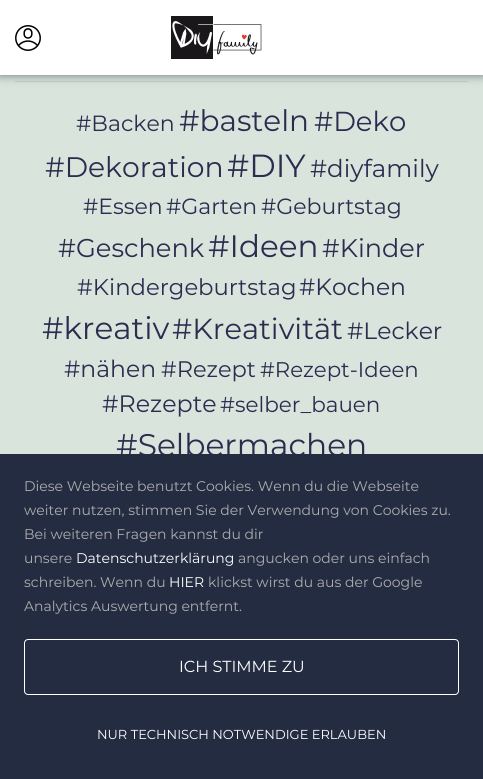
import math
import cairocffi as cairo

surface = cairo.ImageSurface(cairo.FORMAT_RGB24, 483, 779)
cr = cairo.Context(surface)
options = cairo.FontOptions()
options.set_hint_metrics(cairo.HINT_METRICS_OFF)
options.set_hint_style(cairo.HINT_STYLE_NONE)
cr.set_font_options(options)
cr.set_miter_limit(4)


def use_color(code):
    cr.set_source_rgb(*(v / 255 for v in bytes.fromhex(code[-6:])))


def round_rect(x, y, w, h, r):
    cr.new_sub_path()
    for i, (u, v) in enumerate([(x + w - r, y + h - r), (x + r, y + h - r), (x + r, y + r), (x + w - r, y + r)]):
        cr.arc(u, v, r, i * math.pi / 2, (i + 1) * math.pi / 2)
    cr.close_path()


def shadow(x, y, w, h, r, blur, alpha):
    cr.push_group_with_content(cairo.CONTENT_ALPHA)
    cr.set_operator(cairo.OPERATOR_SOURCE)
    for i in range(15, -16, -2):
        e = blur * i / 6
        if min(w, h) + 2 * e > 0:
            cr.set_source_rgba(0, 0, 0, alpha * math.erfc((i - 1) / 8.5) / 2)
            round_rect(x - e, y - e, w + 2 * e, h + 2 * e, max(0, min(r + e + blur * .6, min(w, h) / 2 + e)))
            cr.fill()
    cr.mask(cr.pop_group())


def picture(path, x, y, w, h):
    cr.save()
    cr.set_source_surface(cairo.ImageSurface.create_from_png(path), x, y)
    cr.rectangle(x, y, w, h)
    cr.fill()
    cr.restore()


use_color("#d9e4dd")
cr.paint()
use_color("#c3cdc7")
cr.rectangle(15, 81, 453, 1)
cr.fill()
use_color("#000000")
shadow(0, 0, 483, 75, 0, 5, 0.5)
use_color("#ffffff")
cr.rectangle(0, 0, 483, 75)
cr.fill()
picture("img1.png", 15, 25, 26, 26)
picture("img2.png", 171, 16, 91, 43)
cr.select_font_face("Montserrat")
cr.set_font_size(22)
use_color("#2c2d4e")
cr.move_to(76, 131)
cr.show_text("#Backen")
cr.set_font_size(29.5)
cr.move_to(179, 131)
cr.show_text("#basteln")
cr.set_font_size(27.5)
cr.move_to(314, 131)
cr.show_text("#Deko")
cr.set_font_size(28.25)
cr.move_to(45, 177)
cr.show_text("#Dekoration")
cr.set_font_size(32)
cr.move_to(227, 177)
cr.show_text("#DIY")
cr.set_font_size(24.5)
cr.move_to(310, 177)
cr.show_text("#diyfamily")
cr.set_font_size(22)
cr.move_to(83, 214)
cr.show_text("#Essen")
cr.move_to(166, 214)
cr.show_text("#Garten")
cr.move_to(261, 214)
cr.show_text("#Geburtstag")
cr.set_font_size(25.75)
cr.move_to(58, 257)
cr.show_text("#Geschenk")
cr.set_font_size(31)
cr.move_to(208, 257)
cr.show_text("#Ideen")
cr.set_font_size(25.5)
cr.move_to(322, 257)
cr.show_text("#Kinder")
cr.set_font_size(22.75)
cr.move_to(77, 295)
cr.show_text("#Kindergeburtstag")
cr.set_font_size(23.5)
cr.move_to(299, 295)
cr.show_text("#Kochen")
cr.set_font_size(31)
cr.move_to(42, 339)
cr.show_text("#kreativ")
cr.set_font_size(29)
cr.move_to(172, 339)
cr.show_text("#Kreativität")
cr.set_font_size(23.5)
cr.move_to(347, 339)
cr.show_text("#Lecker")
cr.move_to(64, 377)
cr.show_text("#nähen")
cr.set_font_size(22.5)
cr.move_to(161, 377)
cr.show_text("#Rezept")
cr.set_font_size(21.25)
cr.move_to(260, 377)
cr.show_text("#Rezept-Ideen")
cr.set_font_size(23.75)
cr.move_to(102, 412)
cr.show_text("#Rezepte")
cr.set_font_size(21.5)
cr.move_to(220, 412)
cr.show_text("#selber_bauen")
cr.set_font_size(31.25)
cr.move_to(116, 456)
cr.show_text("#Selbermachen")
use_color("#232c41")
cr.rectangle(0, 454, 483, 325)
cr.fill()
cr.set_font_size(14)
use_color("#adadad")
cr.move_to(24, 491)
cr.show_text("Diese Webseite benutzt Cookies. Wenn du die Webseite")
cr.move_to(24, 515)
cr.show_text("weiter nutzen, stimmen Sie der Verwendung von Cookies zu.")
cr.move_to(24, 539)
cr.show_text("Bei weiteren Fragen kannst du dir")
cr.move_to(24, 563)
cr.show_text("unsere")
use_color("#ffffff")
cr.move_to(76, 563)
cr.show_text("Datenschutzerklärung")
use_color("#adadad")
cr.move_to(238, 563)
cr.show_text("angucken oder uns einfach")
cr.move_to(24, 587)
cr.show_text("schreiben. Wenn du")
use_color("#ffffff")
cr.move_to(169, 587)
cr.show_text("HIER")
use_color("#adadad")
cr.move_to(208, 587)
cr.show_text("klickst wirst du aus der Google")
cr.move_to(24, 611)
cr.show_text("Analytics Auswertung entfernt.")
round_rect(24.5, 639.5, 434, 55, 3.5)
use_color("#ffffff")
cr.set_line_width(1)
cr.stroke()
cr.set_font_size(16)
cr.move_to(179, 672)
cr.show_text("ICH STIMME ZU")
cr.set_font_size(13)
cr.move_to(97, 739)
cr.show_text("NUR TECHNISCH NOTWENDIGE ERLAUBEN")
surface.write_to_png("result.png")
